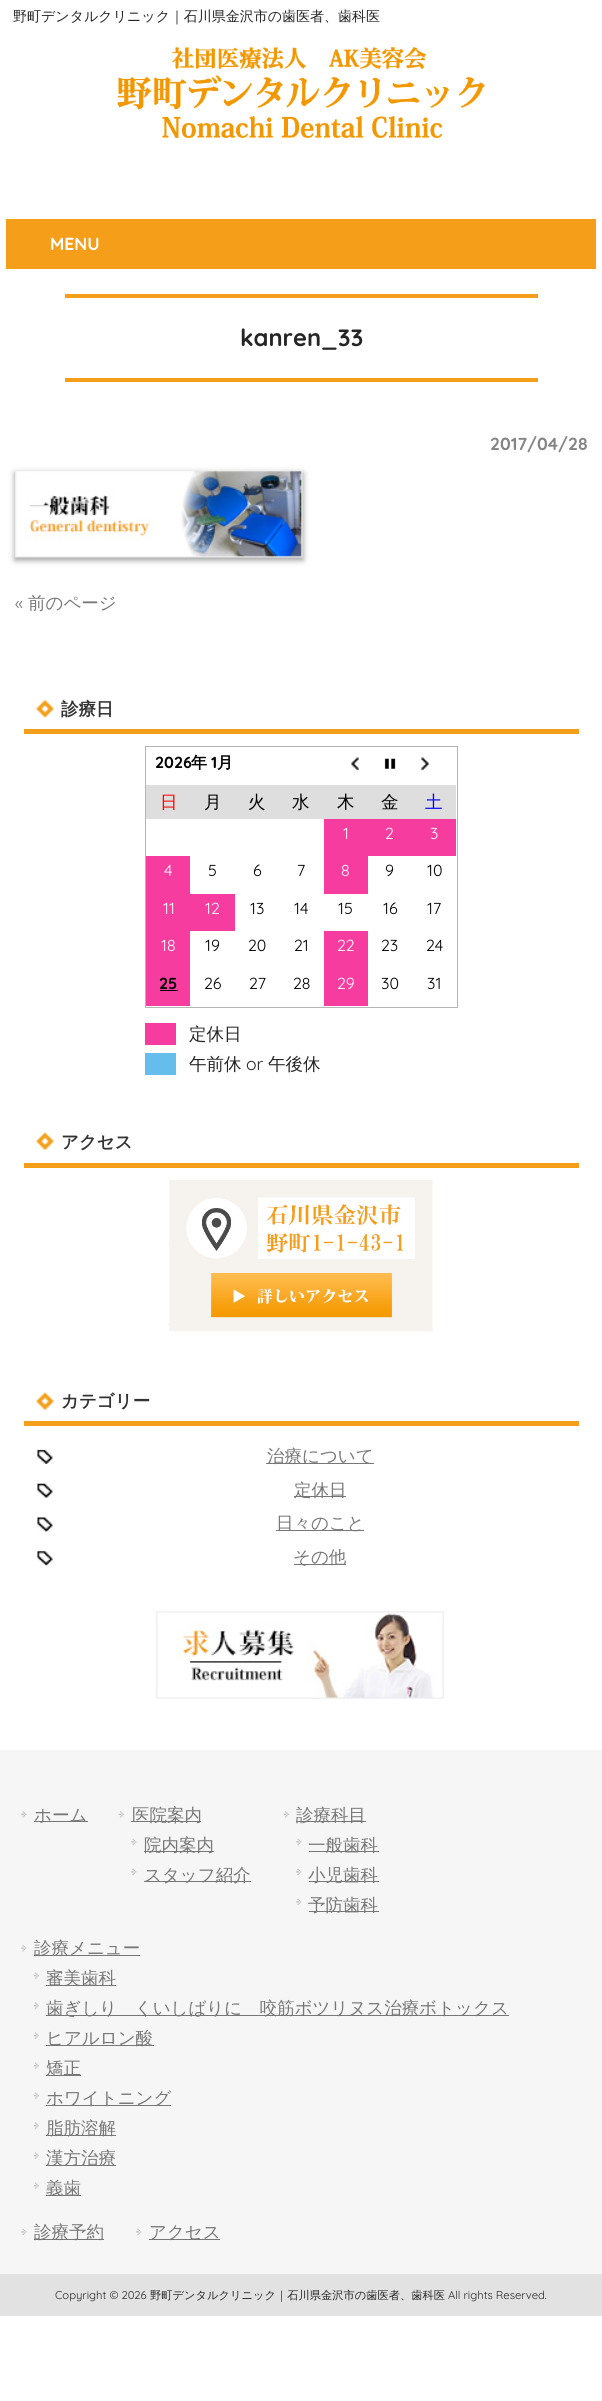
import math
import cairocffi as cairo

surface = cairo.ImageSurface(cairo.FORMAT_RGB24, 602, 2401)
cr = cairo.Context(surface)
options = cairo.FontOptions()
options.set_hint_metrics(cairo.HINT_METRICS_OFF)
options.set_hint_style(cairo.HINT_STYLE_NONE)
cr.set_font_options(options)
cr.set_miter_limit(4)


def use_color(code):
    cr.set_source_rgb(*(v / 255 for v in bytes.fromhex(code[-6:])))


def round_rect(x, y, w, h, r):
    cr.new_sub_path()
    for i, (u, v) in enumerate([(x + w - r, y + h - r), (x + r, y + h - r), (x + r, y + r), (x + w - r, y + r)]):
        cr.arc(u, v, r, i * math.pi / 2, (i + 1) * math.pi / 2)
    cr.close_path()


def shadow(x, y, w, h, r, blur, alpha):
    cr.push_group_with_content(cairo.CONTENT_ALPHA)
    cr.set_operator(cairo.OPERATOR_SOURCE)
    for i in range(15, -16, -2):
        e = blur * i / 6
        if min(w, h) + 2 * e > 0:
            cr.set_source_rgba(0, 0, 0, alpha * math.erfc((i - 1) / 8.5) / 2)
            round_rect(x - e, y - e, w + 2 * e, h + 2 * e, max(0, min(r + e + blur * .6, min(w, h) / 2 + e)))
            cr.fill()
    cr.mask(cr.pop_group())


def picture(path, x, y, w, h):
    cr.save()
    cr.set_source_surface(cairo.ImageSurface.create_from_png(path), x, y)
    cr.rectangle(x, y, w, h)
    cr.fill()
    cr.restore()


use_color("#ffffff")
cr.paint()
cr.select_font_face("WenQuanYi Zen Hei Medium")
cr.set_font_size(14)
use_color("#252525")
cr.move_to(13, 21)
cr.show_text("野町デンタルクリニック｜石川県金沢市の歯医者、歯科医")
picture("img1.png", 117, 47, 368, 91)
use_color("#f49e19")
cr.rectangle(6, 219, 590, 50)
cr.fill()
cr.select_font_face("Quicksand", cairo.FONT_SLANT_NORMAL, cairo.FONT_WEIGHT_BOLD)
cr.set_font_size(17.5)
use_color("#ffffff")
cr.move_to(50, 250)
cr.show_text("MENU")
use_color("#f49e19")
cr.rectangle(65, 294, 473, 4)
cr.fill()
cr.rectangle(65, 378, 473, 4)
cr.fill()
cr.set_font_size(23.75)
use_color("#252525")
cr.move_to(240, 346)
cr.show_text("kanren_33")
cr.set_font_size(17.5)
use_color("#858585")
cr.move_to(490, 450)
cr.show_text("2017/04/28")
use_color("#999999")
shadow(15, 473, 288, 87, 0, 3, 1)
picture("img2.png", 15, 470, 288, 88)
cr.select_font_face("Quicksand")
use_color("#777777")
cr.move_to(15, 609)
cr.show_text("«")
cr.select_font_face("WenQuanYi Zen Hei Medium")
cr.move_to(28, 609)
cr.show_text("前のページ")
picture("img3.png", 36, 699, 18, 19)
use_color("#f49e19")
cr.rectangle(24, 729, 555, 5)
cr.fill()
cr.select_font_face("WenQuanYi Zen Hei", cairo.FONT_SLANT_NORMAL, cairo.FONT_WEIGHT_BOLD)
use_color("#333333")
cr.move_to(61, 715)
cr.show_text("診療日")
cr.rectangle(145.5, 746.5, 312, 261)
use_color("#b5b5b6")
cr.set_line_width(1)
cr.stroke()
cr.select_font_face("Quicksand", cairo.FONT_SLANT_NORMAL, cairo.FONT_WEIGHT_BOLD)
cr.set_font_size(16)
use_color("#000000")
cr.move_to(155, 768)
cr.show_text("2026")
cr.select_font_face("WenQuanYi Zen Hei", cairo.FONT_SLANT_NORMAL, cairo.FONT_WEIGHT_BOLD)
cr.move_to(191, 768)
cr.show_text("年")
cr.select_font_face("Quicksand", cairo.FONT_SLANT_NORMAL, cairo.FONT_WEIGHT_BOLD)
cr.move_to(211, 768)
cr.show_text("1")
cr.select_font_face("WenQuanYi Zen Hei", cairo.FONT_SLANT_NORMAL, cairo.FONT_WEIGHT_BOLD)
cr.move_to(217, 768)
cr.show_text("月")
picture("img4.png", 351, 757, 8, 14)
picture("img5.png", 384, 758, 12, 11)
picture("img6.png", 421, 757, 8, 14)
use_color("#dedede")
cr.rectangle(146, 785, 310, 34)
cr.fill()
cr.select_font_face("WenQuanYi Zen Hei Medium")
cr.set_font_size(17.5)
use_color("#ff0000")
cr.move_to(160, 808)
cr.show_text("日")
use_color("#000000")
cr.move_to(204, 808)
cr.show_text("月")
cr.move_to(248, 808)
cr.show_text("火")
cr.move_to(292, 808)
cr.show_text("水")
cr.move_to(337, 808)
cr.show_text("木")
cr.move_to(381, 808)
cr.show_text("金")
use_color("#0000ff")
cr.move_to(425, 808)
cr.show_text("土")
use_color("#f63c9f")
cr.rectangle(324, 819, 132, 37)
cr.fill()
cr.select_font_face("Quicksand")
cr.set_font_size(16)
use_color("#ffffff")
cr.move_to(343, 839)
cr.show_text("1")
cr.move_to(385, 839)
cr.show_text("2")
cr.move_to(430, 839)
cr.show_text("3")
use_color("#f63c9f")
cr.rectangle(146, 856, 44, 150)
cr.fill()
use_color("#ffffff")
cr.move_to(164, 876)
cr.show_text("4")
use_color("#000000")
cr.move_to(208, 876)
cr.show_text("5")
cr.move_to(253, 876)
cr.show_text("6")
cr.move_to(297, 876)
cr.show_text("7")
use_color("#f63c9f")
cr.rectangle(324, 856, 44, 38)
cr.fill()
use_color("#ffffff")
cr.move_to(341, 876)
cr.show_text("8")
use_color("#000000")
cr.move_to(385, 876)
cr.show_text("9")
cr.move_to(427, 876)
cr.show_text("10")
use_color("#ffffff")
cr.move_to(163, 914)
cr.show_text("11")
use_color("#f63c9f")
cr.rectangle(190, 894, 45, 37)
cr.fill()
use_color("#ffffff")
cr.move_to(205, 914)
cr.show_text("12")
use_color("#000000")
cr.move_to(250, 914)
cr.show_text("13")
cr.move_to(294, 914)
cr.show_text("14")
cr.move_to(338, 914)
cr.show_text("15")
cr.move_to(383, 914)
cr.show_text("16")
cr.move_to(427, 914)
cr.show_text("17")
use_color("#ffffff")
cr.move_to(161, 951)
cr.show_text("18")
use_color("#000000")
cr.move_to(205, 951)
cr.show_text("19")
cr.move_to(248, 951)
cr.show_text("20")
cr.move_to(294, 951)
cr.show_text("21")
use_color("#f63c9f")
cr.rectangle(324, 931, 44, 75)
cr.fill()
use_color("#ffffff")
cr.move_to(337, 951)
cr.show_text("22")
use_color("#000000")
cr.move_to(381, 951)
cr.show_text("23")
cr.move_to(426, 951)
cr.show_text("24")
cr.select_font_face("Quicksand", cairo.FONT_SLANT_NORMAL, cairo.FONT_WEIGHT_BOLD)
cr.move_to(159, 989)
cr.show_text("25")
cr.rectangle(160, 990, 18, 1)
cr.fill()
cr.select_font_face("Quicksand")
cr.move_to(204, 989)
cr.show_text("26")
cr.move_to(249, 989)
cr.show_text("27")
cr.move_to(293, 989)
cr.show_text("28")
use_color("#ffffff")
cr.move_to(337, 989)
cr.show_text("29")
use_color("#000000")
cr.move_to(381, 989)
cr.show_text("30")
cr.move_to(427, 989)
cr.show_text("31")
use_color("#f63c9f")
cr.rectangle(145, 1023, 31, 22)
cr.fill()
cr.select_font_face("WenQuanYi Zen Hei Medium")
cr.set_font_size(17.5)
use_color("#252525")
cr.move_to(189, 1040)
cr.show_text("定休日")
use_color("#64bdeb")
cr.rectangle(145, 1053, 31, 22)
cr.fill()
use_color("#252525")
cr.move_to(189, 1070)
cr.show_text("午前休")
cr.select_font_face("Quicksand")
cr.move_to(246, 1070)
cr.show_text("or")
cr.select_font_face("WenQuanYi Zen Hei Medium")
cr.move_to(268, 1070)
cr.show_text("午後休")
picture("img7.png", 36, 1132, 18, 19)
use_color("#f49e19")
cr.rectangle(24, 1163, 555, 5)
cr.fill()
cr.select_font_face("WenQuanYi Zen Hei", cairo.FONT_SLANT_NORMAL, cairo.FONT_WEIGHT_BOLD)
use_color("#333333")
cr.move_to(61, 1148)
cr.show_text("アクセス")
picture("img8.png", 168, 1180, 265, 152)
picture("img7.png", 36, 1392, 18, 19)
use_color("#f49e19")
cr.rectangle(24, 1421, 555, 5)
cr.fill()
use_color("#333333")
cr.move_to(61, 1407)
cr.show_text("カテゴリー")
picture("img9.png", 37, 1449, 16, 15)
use_color("#777777")
cr.rectangle(266, 1463, 108, 1)
cr.fill()
cr.select_font_face("WenQuanYi Zen Hei Medium")
cr.move_to(267, 1462)
cr.show_text("治療について")
picture("img10.png", 37, 1483, 16, 15)
cr.rectangle(294, 1496, 52, 1)
cr.fill()
cr.move_to(294, 1496)
cr.show_text("定休日")
picture("img11.png", 37, 1517, 16, 15)
cr.rectangle(276, 1530, 88, 1)
cr.fill()
cr.move_to(276, 1529)
cr.show_text("日々のこと")
picture("img12.png", 37, 1551, 16, 15)
cr.rectangle(294, 1564, 52, 1)
cr.fill()
cr.move_to(293, 1563)
cr.show_text("その他")
picture("img13.png", 156, 1611, 288, 88)
use_color("#f6f6f6")
cr.rectangle(0, 1750, 602, 524)
cr.fill()
picture("img14.png", 21, 1811, 6, 7)
use_color("#777777")
cr.rectangle(34, 1821, 54, 1)
cr.fill()
cr.move_to(34, 1821)
cr.show_text("ホーム")
picture("img15.png", 118, 1811, 6, 7)
cr.rectangle(131, 1821, 70, 1)
cr.fill()
cr.move_to(132, 1821)
cr.show_text("医院案内")
picture("img16.png", 131, 1838, 6, 8)
cr.rectangle(144, 1851, 70, 1)
cr.fill()
cr.move_to(144, 1851)
cr.show_text("院内案内")
picture("img16.png", 131, 1868, 6, 8)
cr.rectangle(144, 1881, 107, 1)
cr.fill()
cr.move_to(144, 1881)
cr.show_text("スタッフ紹介")
picture("img15.png", 283, 1811, 6, 7)
cr.rectangle(296, 1821, 70, 1)
cr.fill()
cr.move_to(296, 1821)
cr.show_text("診療科目")
picture("img17.png", 296, 1838, 6, 8)
cr.rectangle(309, 1851, 70, 1)
cr.fill()
cr.move_to(308, 1851)
cr.show_text("一般歯科")
picture("img17.png", 296, 1868, 6, 8)
cr.rectangle(309, 1881, 70, 1)
cr.fill()
cr.move_to(308, 1881)
cr.show_text("小児歯科")
picture("img17.png", 296, 1898, 6, 8)
cr.rectangle(309, 1911, 70, 1)
cr.fill()
cr.move_to(308, 1911)
cr.show_text("予防歯科")
picture("img18.png", 21, 1945, 6, 7)
cr.rectangle(34, 1955, 106, 1)
cr.fill()
cr.move_to(34, 1954)
cr.show_text("診療メニュー")
picture("img19.png", 33, 1972, 6, 7)
cr.rectangle(46, 1985, 70, 1)
cr.fill()
cr.move_to(46, 1984)
cr.show_text("審美歯科")
picture("img19.png", 33, 2002, 6, 7)
cr.rectangle(46, 2015, 463, 1)
cr.fill()
cr.move_to(46, 2014)
cr.show_text("歯ぎしり　くいしばりに　咬筋ボツリヌス治療ボトックス")
picture("img19.png", 33, 2032, 6, 7)
cr.rectangle(46, 2045, 108, 1)
cr.fill()
cr.move_to(46, 2044)
cr.show_text("ヒアルロン酸")
picture("img19.png", 33, 2062, 6, 7)
cr.rectangle(46, 2075, 35, 1)
cr.fill()
cr.move_to(46, 2074)
cr.show_text("矯正")
picture("img19.png", 33, 2092, 6, 7)
cr.rectangle(46, 2105, 125, 1)
cr.fill()
cr.move_to(46, 2104)
cr.show_text("ホワイトニング")
picture("img19.png", 33, 2122, 6, 7)
cr.rectangle(46, 2135, 70, 1)
cr.fill()
cr.move_to(46, 2134)
cr.show_text("脂肪溶解")
picture("img19.png", 33, 2152, 6, 7)
cr.rectangle(46, 2165, 70, 1)
cr.fill()
cr.move_to(46, 2164)
cr.show_text("漢方治療")
picture("img19.png", 33, 2182, 6, 7)
cr.rectangle(46, 2195, 35, 1)
cr.fill()
cr.move_to(46, 2194)
cr.show_text("義歯")
picture("img17.png", 21, 2228, 6, 8)
cr.rectangle(34, 2239, 70, 1)
cr.fill()
cr.move_to(34, 2238)
cr.show_text("診療予約")
picture("img16.png", 136, 2228, 6, 8)
cr.rectangle(149, 2239, 71, 1)
cr.fill()
cr.move_to(149, 2238)
cr.show_text("アクセス")
use_color("#e2e2e2")
cr.rectangle(0, 2274, 602, 42)
cr.fill()
cr.select_font_face("Quicksand")
cr.set_font_size(11.25)
use_color("#252525")
cr.move_to(55, 2299)
cr.show_text("Copyright © 2026")
cr.select_font_face("WenQuanYi Zen Hei Medium")
cr.move_to(150, 2299)
cr.show_text("野町デンタルクリニック｜石川県金沢市の歯医者、歯科医")
cr.select_font_face("Quicksand")
cr.move_to(448, 2299)
cr.show_text("All rights Reserved.")
surface.write_to_png("result.png")
